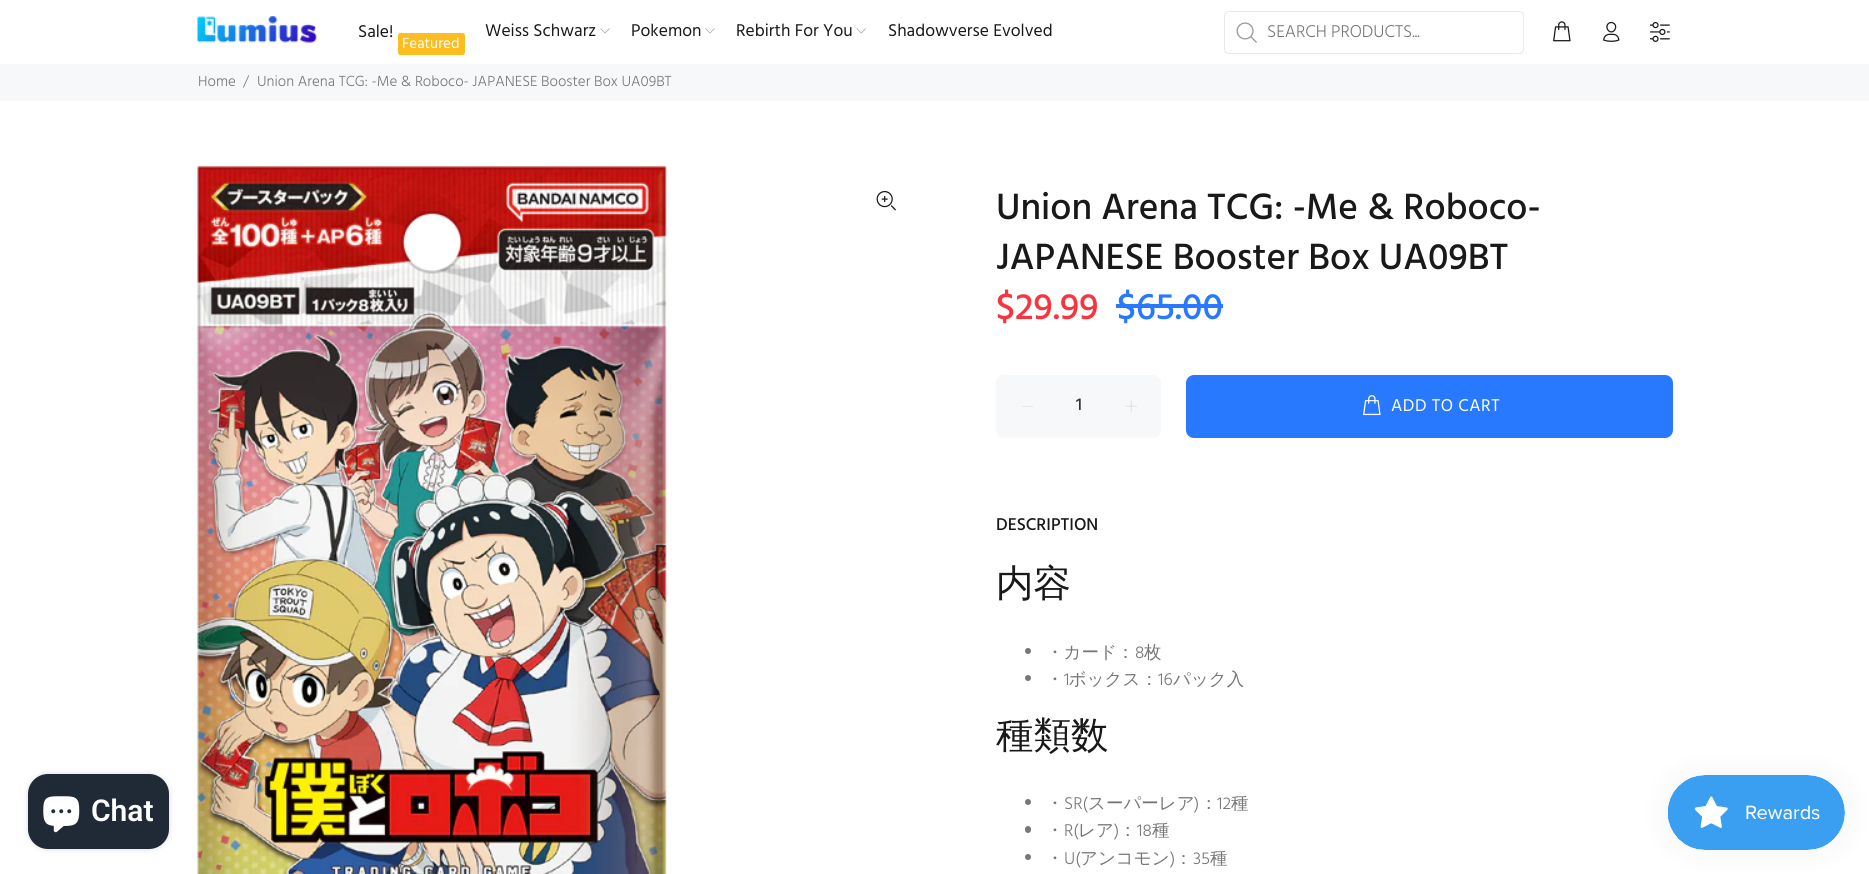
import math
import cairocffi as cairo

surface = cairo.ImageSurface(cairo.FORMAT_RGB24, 1869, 874)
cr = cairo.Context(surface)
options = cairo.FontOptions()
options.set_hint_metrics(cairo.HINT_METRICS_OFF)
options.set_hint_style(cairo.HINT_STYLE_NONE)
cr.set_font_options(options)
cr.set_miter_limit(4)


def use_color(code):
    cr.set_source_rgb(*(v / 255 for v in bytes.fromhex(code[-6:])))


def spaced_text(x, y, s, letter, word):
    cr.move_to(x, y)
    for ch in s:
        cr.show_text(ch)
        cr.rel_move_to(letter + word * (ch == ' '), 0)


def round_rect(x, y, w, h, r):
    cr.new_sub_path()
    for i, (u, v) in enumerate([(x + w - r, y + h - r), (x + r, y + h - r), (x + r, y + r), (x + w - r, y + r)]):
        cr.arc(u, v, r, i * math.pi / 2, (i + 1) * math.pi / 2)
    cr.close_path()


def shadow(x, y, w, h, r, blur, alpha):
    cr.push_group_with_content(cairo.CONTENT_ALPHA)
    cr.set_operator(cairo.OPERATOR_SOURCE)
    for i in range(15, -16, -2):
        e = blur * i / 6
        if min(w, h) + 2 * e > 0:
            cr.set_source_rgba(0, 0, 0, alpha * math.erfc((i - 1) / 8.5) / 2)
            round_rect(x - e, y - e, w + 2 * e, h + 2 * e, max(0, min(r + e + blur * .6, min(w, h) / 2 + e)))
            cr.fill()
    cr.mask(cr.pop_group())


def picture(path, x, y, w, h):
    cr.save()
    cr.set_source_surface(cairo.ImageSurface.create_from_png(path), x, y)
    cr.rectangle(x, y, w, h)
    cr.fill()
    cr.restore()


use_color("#ffffff")
cr.paint()
picture("img1.png", 197, 16, 120, 27)
cr.select_font_face("Hind")
cr.set_font_size(17.5)
use_color("#191919")
cr.move_to(358, 37)
cr.show_text("Sale!")
use_color("#fdbc20")
round_rect(398, 33, 67, 22, 2.5)
cr.fill()
cr.set_font_size(15)
use_color("#ffffff")
cr.move_to(402, 48)
cr.show_text("Featured")
cr.set_font_size(17.5)
use_color("#191919")
cr.move_to(485, 36)
cr.show_text("Weiss Schwarz")
picture("img2.png", 600, 28, 10, 6)
cr.move_to(631, 36)
cr.show_text("Pokemon")
picture("img2.png", 705, 28, 10, 6)
cr.move_to(736, 36)
cr.show_text("Rebirth For You")
picture("img3.png", 856, 28, 10, 6)
cr.move_to(888, 36)
cr.show_text("Shadowverse Evolved")
round_rect(1224.5, 11.5, 299, 42, 4.5)
use_color("#e9e7e7")
cr.set_line_width(1)
cr.stroke()
picture("img4.png", 1236, 22, 21, 21)
cr.select_font_face("Hind Light")
use_color("#777777")
cr.move_to(1267, 37)
cr.show_text("SEARCH PRODUCTS...")
picture("img5.png", 1553, 21, 18, 21)
picture("img6.png", 1603, 21, 17, 21)
picture("img7.png", 1649, 22, 21, 20)
use_color("#f7f8fa")
cr.rectangle(0, 64, 1869, 37)
cr.fill()
cr.set_font_size(15)
use_color("#777777")
cr.move_to(198, 86)
cr.show_text("Home")
cr.move_to(243, 86)
cr.show_text("/")
cr.move_to(257, 86)
cr.show_text("Union Arena TCG: -Me & Roboco- JAPANESE Booster Box UA09BT")
use_color("#000000")
shadow(28, 774, 141, 75, 20, 3, 0.15)
use_color("#202a36")
round_rect(28, 774, 141, 75, 20)
cr.fill()
picture("img8.png", 43, 796, 37, 37)
cr.select_font_face("Roboto SemiBold")
cr.set_font_size(30)
use_color("#ffffff")
cr.move_to(91, 821)
cr.show_text("Chat")
picture("img9.png", 197, 166, 470, 708)
picture("img10.png", 876, 190, 20, 21)
cr.select_font_face("Hind Medium")
cr.set_font_size(37.5)
use_color("#191919")
cr.move_to(996, 219)
cr.show_text("Union Arena TCG: -Me & Roboco-")
cr.move_to(996, 269)
cr.show_text("JAPANESE Booster Box UA09BT")
use_color("#f8353e")
cr.move_to(996, 319)
cr.show_text("$29.99")
use_color("#2879fe")
cr.move_to(1117, 319)
cr.show_text("$65.00")
cr.rectangle(1116, 304, 107, 4)
cr.fill()
use_color("#f7f8fa")
round_rect(996, 375, 165, 63, 8)
cr.fill()
use_color("#d8d8d8")
cr.new_path()
cr.move_to(1033, 406)
cr.line_to(1033, 406.5)
cr.line_to(1022, 406.5)
cr.line_to(1022.5, 406)
cr.close_path()
cr.fill()
cr.set_font_size(17.5)
use_color("#333333")
cr.move_to(1076, 410)
cr.show_text("1")
picture("img11.png", 1125, 400, 12, 12)
use_color("#2879fe")
round_rect(1186, 375, 487, 63, 8)
cr.fill()
picture("img12.png", 1363, 395, 18, 21)
cr.select_font_face("Hind")
use_color("#ffffff")
spaced_text(1391, 411, "ADD TO CART", 0.5, 0)
cr.select_font_face("Hind Medium")
use_color("#191919")
cr.move_to(996, 530)
cr.show_text("DESCRIPTION")
cr.select_font_face("WenQuanYi Zen Hei Medium")
cr.set_font_size(37.5)
cr.move_to(996, 596)
cr.show_text("内容")
use_color("#777777")
cr.new_path()
cr.arc(1028, 651, 3, 0, 2 * math.pi)
cr.fill()
cr.set_font_size(17.5)
cr.move_to(1046, 658)
cr.show_text("・カード：")
cr.select_font_face("Hind Light")
cr.move_to(1135, 658)
cr.show_text("8")
cr.select_font_face("WenQuanYi Zen Hei Medium")
cr.move_to(1144, 658)
cr.show_text("枚")
cr.move_to(1046, 685)
cr.show_text("・ ボックス：")
cr.select_font_face("Hind Light")
cr.move_to(1158, 685)
cr.show_text("16")
cr.select_font_face("WenQuanYi Zen Hei Medium")
cr.move_to(1173, 685)
cr.show_text("パック入")
cr.new_path()
cr.arc(1028, 678, 3, 0, 2 * math.pi)
cr.fill()
cr.select_font_face("Hind Light")
cr.move_to(1064, 685)
cr.show_text("1")
cr.select_font_face("WenQuanYi Zen Hei Medium")
cr.set_font_size(37.5)
use_color("#191919")
cr.move_to(996, 748)
cr.show_text("種類数")
cr.select_font_face("Hind Light")
cr.set_font_size(17.5)
use_color("#777777")
cr.move_to(1064, 809)
cr.show_text("SR(")
cr.select_font_face("WenQuanYi Zen Hei Medium")
cr.move_to(1088, 809)
cr.show_text("スーパーレア ：")
cr.move_to(1231, 809)
cr.show_text("種")
cr.new_path()
cr.arc(1028, 802, 3, 0, 2 * math.pi)
cr.fill()
cr.move_to(1046, 809)
cr.show_text("・")
cr.select_font_face("Hind Light")
cr.move_to(1194, 809)
cr.show_text(")")
cr.move_to(1217, 809)
cr.show_text("12")
cr.move_to(1064, 836)
cr.show_text("R(")
cr.select_font_face("WenQuanYi Zen Hei Medium")
cr.move_to(1078, 836)
cr.show_text("レア ：")
cr.select_font_face("Hind Light")
cr.move_to(1114, 836)
cr.show_text(")")
cr.select_font_face("WenQuanYi Zen Hei Medium")
cr.move_to(1152, 836)
cr.show_text("種")
round_rect(1025, 826, 6, 7, 3)
cr.fill()
cr.move_to(1046, 836)
cr.show_text("・")
cr.select_font_face("Hind Light")
cr.move_to(1137, 836)
cr.show_text("18")
cr.move_to(1064, 864)
cr.show_text("U(")
cr.select_font_face("WenQuanYi Zen Hei Medium")
cr.move_to(1080, 864)
cr.show_text("アンコモン ：")
cr.select_font_face("Hind Light")
cr.move_to(1170, 864)
cr.show_text(")")
cr.select_font_face("WenQuanYi Zen Hei Medium")
cr.move_to(1210, 864)
cr.show_text("種")
cr.new_path()
cr.arc(1028, 857, 3, 0, 2 * math.pi)
cr.fill()
cr.move_to(1046, 864)
cr.show_text("・")
cr.select_font_face("Hind Light")
cr.move_to(1193, 864)
cr.show_text("35")
use_color("#000000")
shadow(1668, 775, 177, 75, 37.5, 15.5, 0.05)
picture("img13.png", 1667, 775, 178, 75)
surface.write_to_png("result.png")
